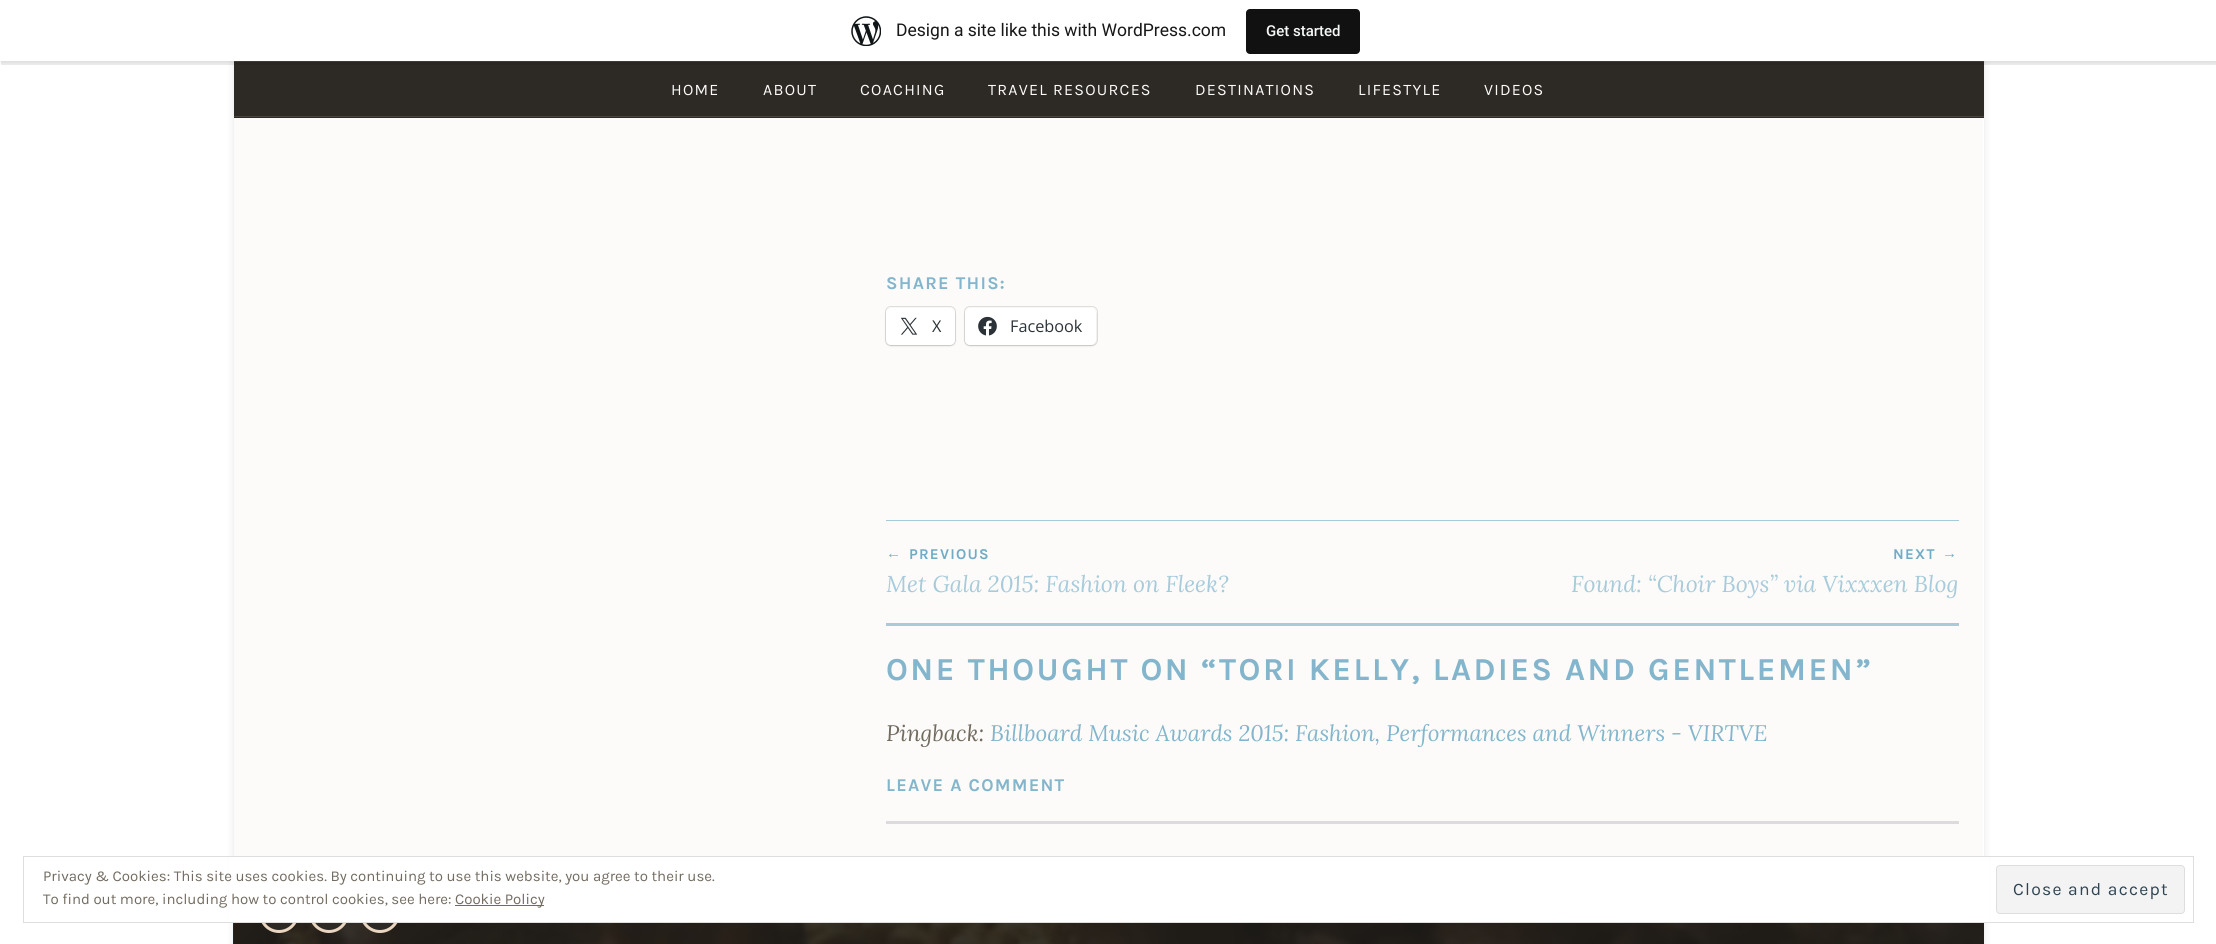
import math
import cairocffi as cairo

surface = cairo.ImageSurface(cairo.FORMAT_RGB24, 2216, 944)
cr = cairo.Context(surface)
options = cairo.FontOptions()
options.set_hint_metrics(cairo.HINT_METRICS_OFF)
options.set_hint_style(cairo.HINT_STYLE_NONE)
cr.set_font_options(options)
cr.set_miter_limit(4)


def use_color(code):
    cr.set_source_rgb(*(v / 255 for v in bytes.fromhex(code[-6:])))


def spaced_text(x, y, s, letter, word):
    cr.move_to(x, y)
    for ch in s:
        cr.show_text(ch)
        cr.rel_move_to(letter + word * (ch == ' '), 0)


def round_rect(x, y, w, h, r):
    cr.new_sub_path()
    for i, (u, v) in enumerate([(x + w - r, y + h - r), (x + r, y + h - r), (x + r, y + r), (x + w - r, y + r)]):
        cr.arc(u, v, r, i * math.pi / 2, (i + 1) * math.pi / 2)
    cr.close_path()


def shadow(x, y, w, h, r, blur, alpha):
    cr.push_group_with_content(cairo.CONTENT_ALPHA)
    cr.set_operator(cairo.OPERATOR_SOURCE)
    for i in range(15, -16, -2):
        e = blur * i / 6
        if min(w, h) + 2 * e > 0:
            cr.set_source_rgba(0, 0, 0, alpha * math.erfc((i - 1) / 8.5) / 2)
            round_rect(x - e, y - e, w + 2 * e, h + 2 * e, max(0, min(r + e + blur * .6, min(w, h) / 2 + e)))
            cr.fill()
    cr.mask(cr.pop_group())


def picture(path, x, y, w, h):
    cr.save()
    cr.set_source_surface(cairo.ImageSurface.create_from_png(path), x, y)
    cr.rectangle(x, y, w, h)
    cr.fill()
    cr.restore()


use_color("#ffffff")
cr.paint()
cr.save()
cr.set_fill_rule(cairo.FILL_RULE_EVEN_ODD)
cr.new_path()
cr.move_to(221, 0)
cr.line_to(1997, 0)
cr.line_to(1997, 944)
cr.line_to(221, 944)
cr.close_path()
cr.move_to(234, -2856)
cr.line_to(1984, -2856)
cr.line_to(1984, 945)
cr.line_to(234, 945)
cr.close_path()
cr.clip()
use_color("#000000")
shadow(234, -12, 1750, 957, 0, 4, 0.1)
cr.restore()
use_color("#2d2a26")
cr.rectangle(234, 62, 1750, 56)
cr.fill()
use_color("#49443d")
cr.rectangle(234, 61, 1750, 1)
cr.fill()
use_color("#000000")
shadow(0, 1, 2216, 62, 0, 1, 0.05)
cr.set_source_rgba(0, 0, 0, 0.08)
cr.new_path()
cr.move_to(1, 61)
cr.line_to(1, 65)
cr.line_to(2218, 65)
cr.line_to(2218, 4)
cr.line_to(2216, 4)
cr.line_to(2216, 61)
cr.close_path()
cr.fill()
use_color("#ffffff")
cr.rectangle(0, 0, 2216, 61)
cr.fill()
picture("img1.png", 851, 16, 30, 30)
cr.select_font_face("Roboto")
cr.set_font_size(17.5)
use_color("#171717")
cr.move_to(896, 36)
cr.show_text("Design a site like this with WordPress.com")
use_color("#111111")
round_rect(1246, 9, 114, 45, 4)
cr.fill()
cr.select_font_face("Roboto Medium")
cr.set_font_size(15)
use_color("#f6f7f7")
cr.move_to(1266, 36)
cr.show_text("Get started")
cr.set_source_rgba(0.988, 0.984, 0.976, 0.9)
cr.rectangle(234, 118, 1749, 738)
cr.fill()
use_color("#49443d")
cr.rectangle(234, 116, 1750, 1)
cr.fill()
cr.select_font_face("Karla")
cr.set_font_size(16)
use_color("#fcfbf9")
spaced_text(671, 95, "HOME", 1.25, 0)
spaced_text(763, 95, "ABOUT", 1.25, 0)
spaced_text(860, 95, "COACHING", 1.25, 0)
spaced_text(988, 95, "TRAVEL RESOURCES", 1.25, 0)
spaced_text(1195, 95, "DESTINATIONS", 1.25, 0)
spaced_text(1358, 95, "LIFESTYLE", 1.25, 0)
spaced_text(1484, 95, "VIDEOS", 1.25, 0)
cr.select_font_face("Karla", cairo.FONT_SLANT_NORMAL, cairo.FONT_WEIGHT_BOLD)
cr.set_font_size(18)
use_color("#83b6cc")
spaced_text(886, 289, "SHARE THIS:", 1.25, 0)
round_rect(885.5, 306.5, 70, 39, 5.5)
use_color("#dedddc")
cr.set_line_width(1)
cr.stroke()
use_color("#000000")
shadow(886, 309, 69, 37, 5, 1, 0.12)
use_color("#ffffff")
round_rect(886, 308, 69, 37, 5)
cr.fill()
picture("img2.png", 900, 317, 18, 18)
cr.select_font_face("Open Sans")
cr.set_font_size(16.25)
use_color("#2c3338")
cr.move_to(932, 332)
cr.show_text("X")
round_rect(964.5, 306.5, 133, 39, 5.5)
use_color("#dedddc")
cr.stroke()
use_color("#000000")
shadow(965, 309, 131, 37, 5, 1, 0.12)
use_color("#ffffff")
round_rect(965, 308, 131, 37, 5)
cr.fill()
picture("img3.png", 978, 316, 19, 20)
use_color("#2c3338")
cr.move_to(1010, 332)
cr.show_text("Facebook")
use_color("#a7cbdb")
cr.rectangle(886, 520, 1073, 1)
cr.fill()
cr.rectangle(886, 623, 1073, 3)
cr.fill()
cr.select_font_face("Liberation Serif")
cr.set_font_size(15)
use_color("#71abc5")
spaced_text(886, 558, "←", 1.25, 0)
cr.select_font_face("Karla", cairo.FONT_SLANT_NORMAL, cairo.FONT_WEIGHT_BOLD)
spaced_text(909, 559, "PREVIOUS", 1.25, 0)
cr.select_font_face("Lora", cairo.FONT_SLANT_ITALIC)
cr.set_font_size(23)
use_color("#a7cbdb")
cr.move_to(886, 592)
cr.show_text("Met Gala 2015: Fashion on Fleek?")
cr.select_font_face("Karla", cairo.FONT_SLANT_NORMAL, cairo.FONT_WEIGHT_BOLD)
cr.set_font_size(15)
use_color("#71abc5")
spaced_text(1893, 559, "NEXT", 1.25, 0)
cr.select_font_face("Liberation Serif")
spaced_text(1942, 558, "→", 1.25, 0)
cr.select_font_face("Lora", cairo.FONT_SLANT_ITALIC)
cr.set_font_size(23)
use_color("#a7cbdb")
cr.move_to(1571, 592)
cr.show_text("Found: “Choir Boys” via Vixxxen Blog")
cr.select_font_face("Karla", cairo.FONT_SLANT_NORMAL, cairo.FONT_WEIGHT_BOLD)
cr.set_font_size(32)
use_color("#83b6cc")
spaced_text(886, 680, "ONE THOUGHT ON “TORI KELLY, LADIES AND GENTLEMEN”", 2.5, 0)
cr.select_font_face("Lora", cairo.FONT_SLANT_ITALIC)
cr.set_font_size(22.5)
use_color("#726b60")
cr.move_to(886, 741)
cr.show_text("Pingback:")
use_color("#83b6cc")
cr.move_to(990, 741)
cr.show_text("Billboard Music Awards 2015: Fashion, Performances and Winners - VIRTVE")
cr.select_font_face("Karla", cairo.FONT_SLANT_NORMAL, cairo.FONT_WEIGHT_BOLD)
cr.set_font_size(18)
spaced_text(886, 791, "LEAVE A COMMENT", 1.25, 0)
use_color("#dcdcde")
cr.rectangle(886, 821, 1073, 3)
cr.fill()
picture("img4.png", 233, 923, 1751, 21)
use_color("#2d2a26")
cr.arc(279, 913, 18.5, 0, 2 * math.pi)
cr.fill_preserve()
use_color("#e9d5c0")
cr.set_line_width(3)
cr.stroke()
use_color("#2d2a26")
cr.arc(329, 913, 18.5, 0, 2 * math.pi)
cr.fill_preserve()
use_color("#e9d5c0")
cr.stroke()
use_color("#2d2a26")
cr.arc(380, 913, 18.5, 0, 2 * math.pi)
cr.fill_preserve()
use_color("#e9d5c0")
cr.stroke()
use_color("#ffffff")
cr.rectangle(229, 857, 1760, 65)
cr.fill()
cr.rectangle(23.5, 856.5, 2170, 66)
use_color("#dedede")
cr.set_line_width(1)
cr.stroke()
cr.select_font_face("Karla")
cr.set_font_size(15)
use_color("#726b60")
cr.move_to(43, 881)
cr.show_text("Privacy & Cookies: This site uses cookies. By continuing to use this website, you agree to their use.")
cr.move_to(43, 904)
cr.show_text("To find out more, including how to control cookies, see here:")
cr.rectangle(455, 905, 89, 1)
cr.fill()
cr.move_to(455, 904)
cr.show_text("Cookie Policy")
use_color("#f3f3f3")
round_rect(1996.5, 865.5, 188, 48, 3.5)
cr.fill_preserve()
use_color("#dedede")
cr.stroke()
cr.set_font_size(17.5)
use_color("#2e4453")
spaced_text(2013, 895, "Close and accept", 1.25, 0)
surface.write_to_png("result.png")
